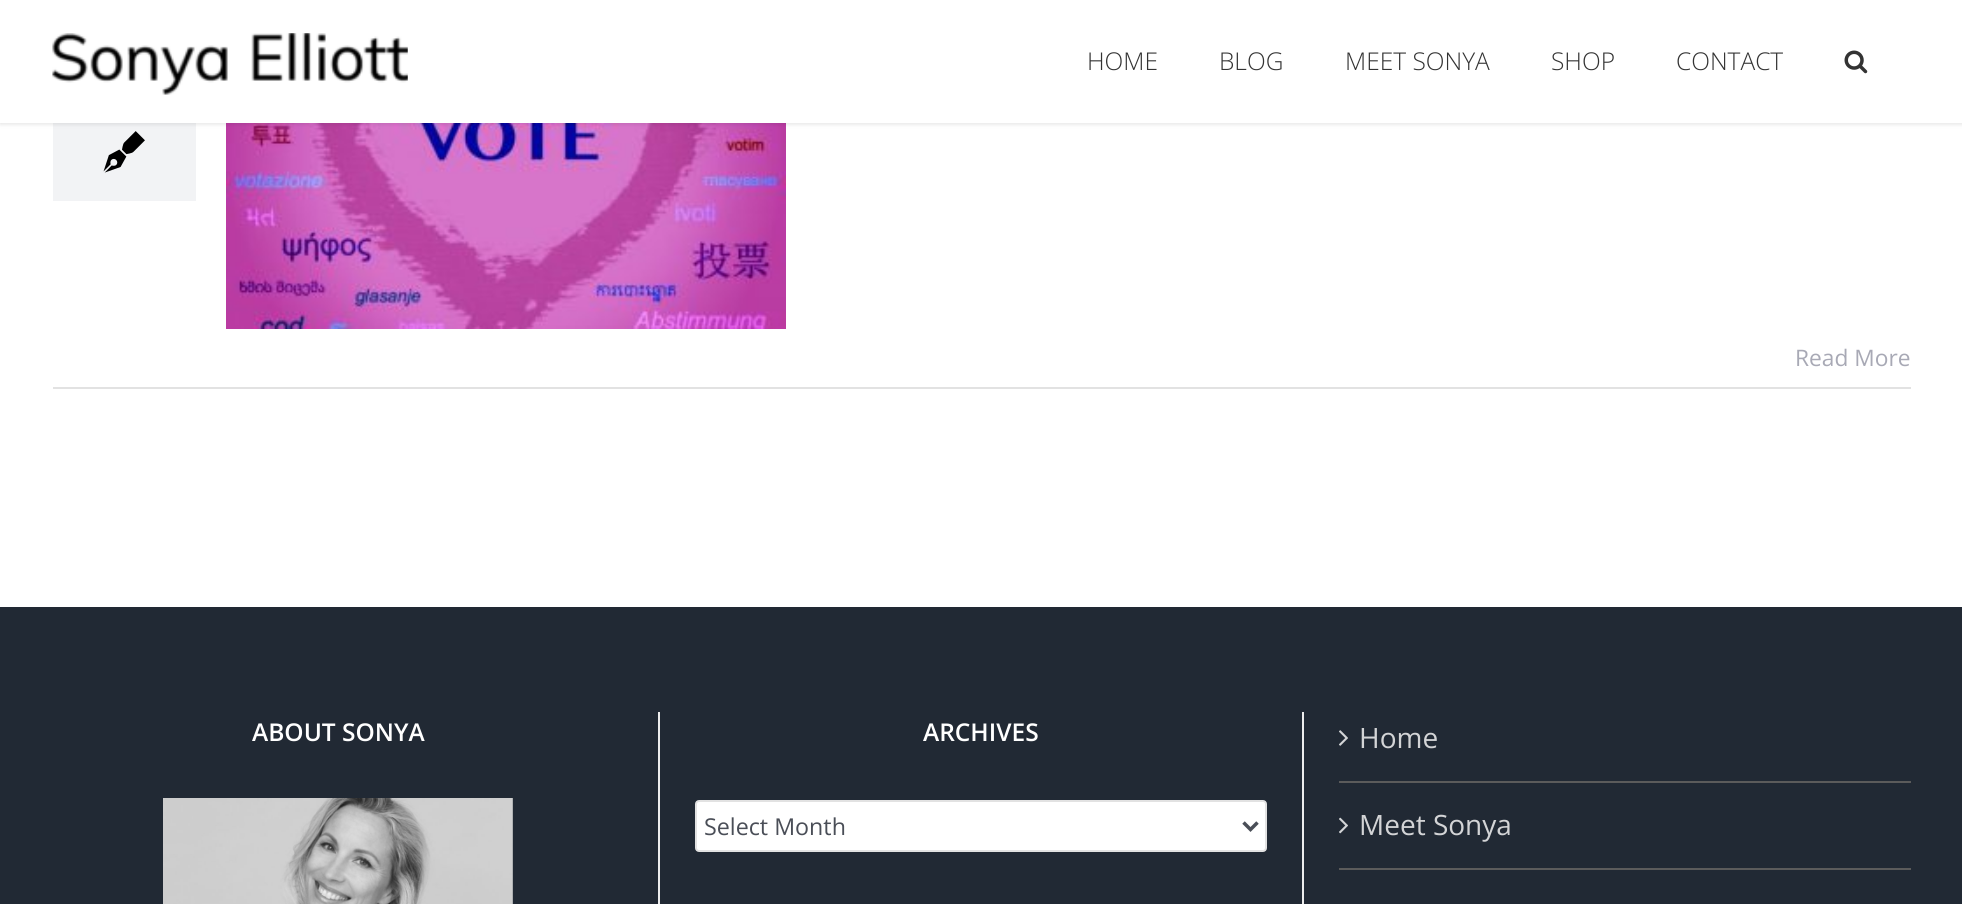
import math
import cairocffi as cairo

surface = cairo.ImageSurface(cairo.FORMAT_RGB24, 1962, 904)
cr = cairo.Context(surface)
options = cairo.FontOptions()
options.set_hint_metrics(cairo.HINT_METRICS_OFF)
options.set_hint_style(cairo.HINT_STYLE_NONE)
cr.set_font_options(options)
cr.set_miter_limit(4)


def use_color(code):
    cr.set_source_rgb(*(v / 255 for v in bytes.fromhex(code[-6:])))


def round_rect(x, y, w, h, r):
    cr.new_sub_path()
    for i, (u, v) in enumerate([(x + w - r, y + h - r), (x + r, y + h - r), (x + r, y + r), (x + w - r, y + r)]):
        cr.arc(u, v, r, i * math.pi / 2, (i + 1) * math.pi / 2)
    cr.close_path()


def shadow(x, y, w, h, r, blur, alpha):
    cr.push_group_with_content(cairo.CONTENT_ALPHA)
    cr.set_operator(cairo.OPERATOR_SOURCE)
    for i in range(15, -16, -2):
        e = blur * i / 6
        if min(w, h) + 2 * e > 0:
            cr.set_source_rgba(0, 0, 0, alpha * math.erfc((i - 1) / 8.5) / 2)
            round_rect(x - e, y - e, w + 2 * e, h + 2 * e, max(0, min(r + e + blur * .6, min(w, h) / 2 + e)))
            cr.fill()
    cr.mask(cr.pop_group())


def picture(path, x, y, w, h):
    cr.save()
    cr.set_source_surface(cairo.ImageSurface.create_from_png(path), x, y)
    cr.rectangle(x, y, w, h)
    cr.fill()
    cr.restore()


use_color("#ffffff")
cr.paint()
use_color("#f2f3f5")
cr.rectangle(53, 123, 143, 78)
cr.fill()
picture("img3.png", 103, 131, 42, 42)
picture("img4.png", 226, 123, 560, 206)
use_color("#000000")
shadow(0, 2, 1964, 122, 0, 2.5, 0.12)
use_color("#ffffff")
cr.rectangle(0, 0, 1962, 123)
cr.fill()
picture("img1.png", 52, 33, 356, 62)
cr.select_font_face("Open Sans Light")
cr.set_font_size(24.5)
use_color("#333333")
cr.move_to(1087, 70)
cr.show_text("HOME")
cr.move_to(1219, 70)
cr.show_text("BLOG")
cr.move_to(1345, 70)
cr.show_text("MEET SONYA")
cr.move_to(1551, 70)
cr.show_text("SHOP")
cr.move_to(1676, 70)
cr.show_text("CONTACT")
picture("img2.png", 1844, 50, 24, 24)
use_color("#e2e2e2")
cr.rectangle(53, 387, 1858, 2)
cr.fill()
cr.select_font_face("Open Sans")
cr.set_font_size(22.75)
use_color("#a8a9b5")
cr.move_to(1795, 366)
cr.show_text("Read More")
use_color("#212934")
cr.rectangle(0, 607, 1962, 297)
cr.fill()
use_color("#ededed")
cr.rectangle(658, 712, 2, 192)
cr.fill()
cr.select_font_face("Open Sans SemiBold")
cr.set_font_size(24.5)
use_color("#ffffff")
cr.move_to(252, 741)
cr.show_text("ABOUT SONYA")
picture("img5.png", 163, 798, 350, 106)
use_color("#ededed")
cr.rectangle(1302, 712, 2, 192)
cr.fill()
use_color("#ffffff")
cr.move_to(923, 741)
cr.show_text("ARCHIVES")
round_rect(696, 801, 570, 50, 3)
cr.fill_preserve()
use_color("#e2e2e2")
cr.stroke()
cr.new_path()
cr.move_to(1243.5, 822.5)
cr.line_to(1250.5, 829.5)
cr.line_to(1257.5, 822.5)
use_color("#4a4e57")
cr.set_line_width(3.5)
cr.stroke()
cr.select_font_face("Open Sans")
cr.set_font_size(23.25)
cr.move_to(704, 835)
cr.show_text("Select Month")
use_color("#5b5b5b")
cr.rectangle(1339, 781, 572, 2)
cr.fill()
picture("img6.png", 1339, 730, 9, 16)
cr.set_font_size(28)
use_color("#d3d4d6")
cr.move_to(1359, 748)
cr.show_text("Home")
use_color("#5b5b5b")
cr.rectangle(1339, 868, 572, 2)
cr.fill()
picture("img7.png", 1339, 817, 9, 17)
use_color("#d3d4d6")
cr.move_to(1359, 835)
cr.show_text("Meet Sonya")
surface.write_to_png("result.png")
